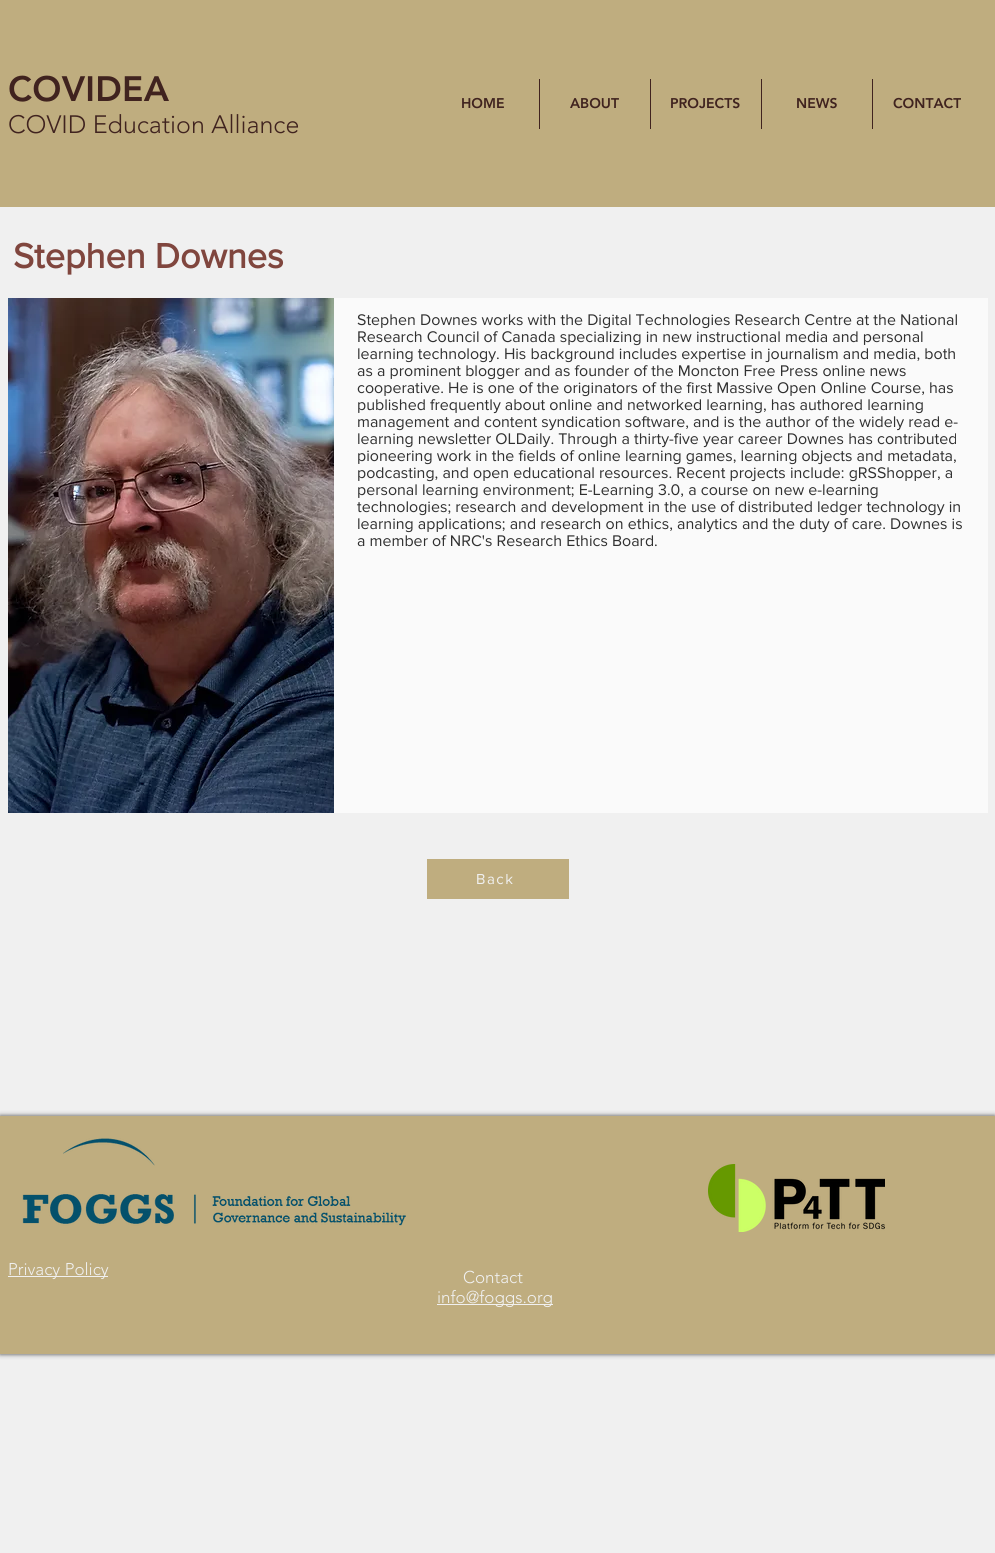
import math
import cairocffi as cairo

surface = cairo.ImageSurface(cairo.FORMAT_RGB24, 995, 1553)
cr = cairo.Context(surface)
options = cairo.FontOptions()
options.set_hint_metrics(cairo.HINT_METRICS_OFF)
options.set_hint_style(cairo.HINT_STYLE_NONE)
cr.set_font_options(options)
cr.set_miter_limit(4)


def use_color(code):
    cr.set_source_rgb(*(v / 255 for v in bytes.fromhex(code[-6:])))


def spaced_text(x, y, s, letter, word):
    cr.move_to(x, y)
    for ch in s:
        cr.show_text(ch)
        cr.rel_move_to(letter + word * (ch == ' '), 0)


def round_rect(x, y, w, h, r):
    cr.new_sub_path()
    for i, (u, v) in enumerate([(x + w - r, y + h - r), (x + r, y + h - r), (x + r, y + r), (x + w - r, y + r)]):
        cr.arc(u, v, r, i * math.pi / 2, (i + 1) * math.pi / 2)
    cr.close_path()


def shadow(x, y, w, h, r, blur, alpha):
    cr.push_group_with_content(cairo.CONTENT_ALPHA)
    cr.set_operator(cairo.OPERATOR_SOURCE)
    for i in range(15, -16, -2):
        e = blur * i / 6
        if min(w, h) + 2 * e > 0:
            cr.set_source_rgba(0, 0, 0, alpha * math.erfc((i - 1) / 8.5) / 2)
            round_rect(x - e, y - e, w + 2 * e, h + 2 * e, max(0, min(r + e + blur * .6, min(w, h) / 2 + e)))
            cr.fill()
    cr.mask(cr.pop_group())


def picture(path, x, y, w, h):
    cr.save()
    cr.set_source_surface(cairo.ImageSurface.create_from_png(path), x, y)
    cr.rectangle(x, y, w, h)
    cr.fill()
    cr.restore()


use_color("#f0f0f0")
cr.paint()
use_color("#bfad7f")
cr.rectangle(0, 0, 995, 207)
cr.fill()
cr.select_font_face("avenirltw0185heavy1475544 Black")
cr.set_font_size(35)
use_color("#40231f")
spaced_text(8, 101, "COVIDEA", 0.25, 0)
cr.select_font_face("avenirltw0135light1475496 Light")
cr.set_font_size(25)
cr.move_to(8, 133)
cr.show_text("COVID Education Alliance")
cr.select_font_face("avenirltw0185heavy1475544 Black")
cr.set_font_size(14)
cr.move_to(461, 108)
cr.show_text("HOME")
cr.rectangle(539, 79, 1, 50)
cr.fill()
cr.move_to(570, 108)
cr.show_text("ABOUT")
cr.rectangle(650, 79, 1, 50)
cr.fill()
cr.move_to(670, 108)
cr.show_text("PROJECTS")
cr.rectangle(761, 79, 1, 50)
cr.fill()
cr.move_to(796, 108)
cr.show_text("NEWS")
cr.rectangle(872, 79, 1, 50)
cr.fill()
cr.move_to(893, 108)
cr.show_text("CONTACT")
cr.select_font_face("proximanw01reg", cairo.FONT_SLANT_NORMAL, cairo.FONT_WEIGHT_BOLD)
cr.set_font_size(36)
use_color("#80463e")
cr.move_to(13, 268)
cr.show_text("Stephen Downes")
picture("img1.png", 8, 298, 326, 515)
use_color("#fafafa")
cr.rectangle(334, 298, 654, 515)
cr.fill()
cr.select_font_face("proximanw01reg")
cr.set_font_size(16)
use_color("#303030")
cr.move_to(357, 325)
cr.show_text("Stephen Downes works with the Digital Technologies Research Centre at the National")
cr.move_to(357, 342)
cr.show_text("Research Council of Canada specializing in new instructional media and personal")
cr.move_to(357, 359)
cr.show_text("learning technology. His background includes expertise in journalism and media, both")
cr.move_to(357, 376)
cr.show_text("as a prominent blogger and as founder of the Moncton Free Press online news")
cr.move_to(357, 393)
cr.show_text("cooperative. He is one of the originators of the first Massive Open Online Course, has")
cr.move_to(357, 410)
cr.show_text("published frequently about online and networked learning, has authored learning")
cr.move_to(357, 427)
cr.show_text("management and content syndication software, and is the author of the widely read e-")
cr.move_to(357, 444)
cr.show_text("learning newsletter OLDaily. Through a thirty-five year career Downes has contributed")
cr.move_to(357, 461)
cr.show_text("pioneering work in the fields of online learning games, learning objects and metadata,")
cr.move_to(357, 478)
cr.show_text("podcasting, and open educational resources. Recent projects include: gRSShopper, a")
cr.move_to(357, 495)
cr.show_text("personal learning environment; E-Learning 3.0, a course on new e-learning")
cr.move_to(357, 512)
cr.show_text("technologies; research and development in the use of distributed ledger technology in")
cr.move_to(357, 529)
cr.show_text("learning applications; and research on ethics, analytics and the duty of care. Downes is")
cr.move_to(357, 546)
cr.show_text("a member of NRC's Research Ethics Board.")
use_color("#bfad7f")
cr.rectangle(427, 859, 142, 40)
cr.fill()
cr.set_font_size(15)
use_color("#f0f0f0")
spaced_text(476, 884, "Back", 1.5, 0)
use_color("#000000")
shadow(0, 1116, 995, 238, 0, 2.5, 0.7)
use_color("#bfad7f")
cr.rectangle(0, 1116, 995, 238)
cr.fill()
picture("img2.png", 22, 1138, 384, 88)
picture("img3.png", 708, 1164, 177, 68)
use_color("#f0f0f0")
cr.rectangle(8, 1276, 100, 1)
cr.fill()
cr.select_font_face("avenirltw0135light1475496 Light")
cr.set_font_size(17)
cr.move_to(8, 1275)
cr.show_text("Privacy Policy")
cr.move_to(463, 1283)
cr.show_text("Contact")
cr.rectangle(437, 1304, 116, 1)
cr.fill()
cr.move_to(437, 1303)
cr.show_text("info@foggs.org")
surface.write_to_png("result.png")
